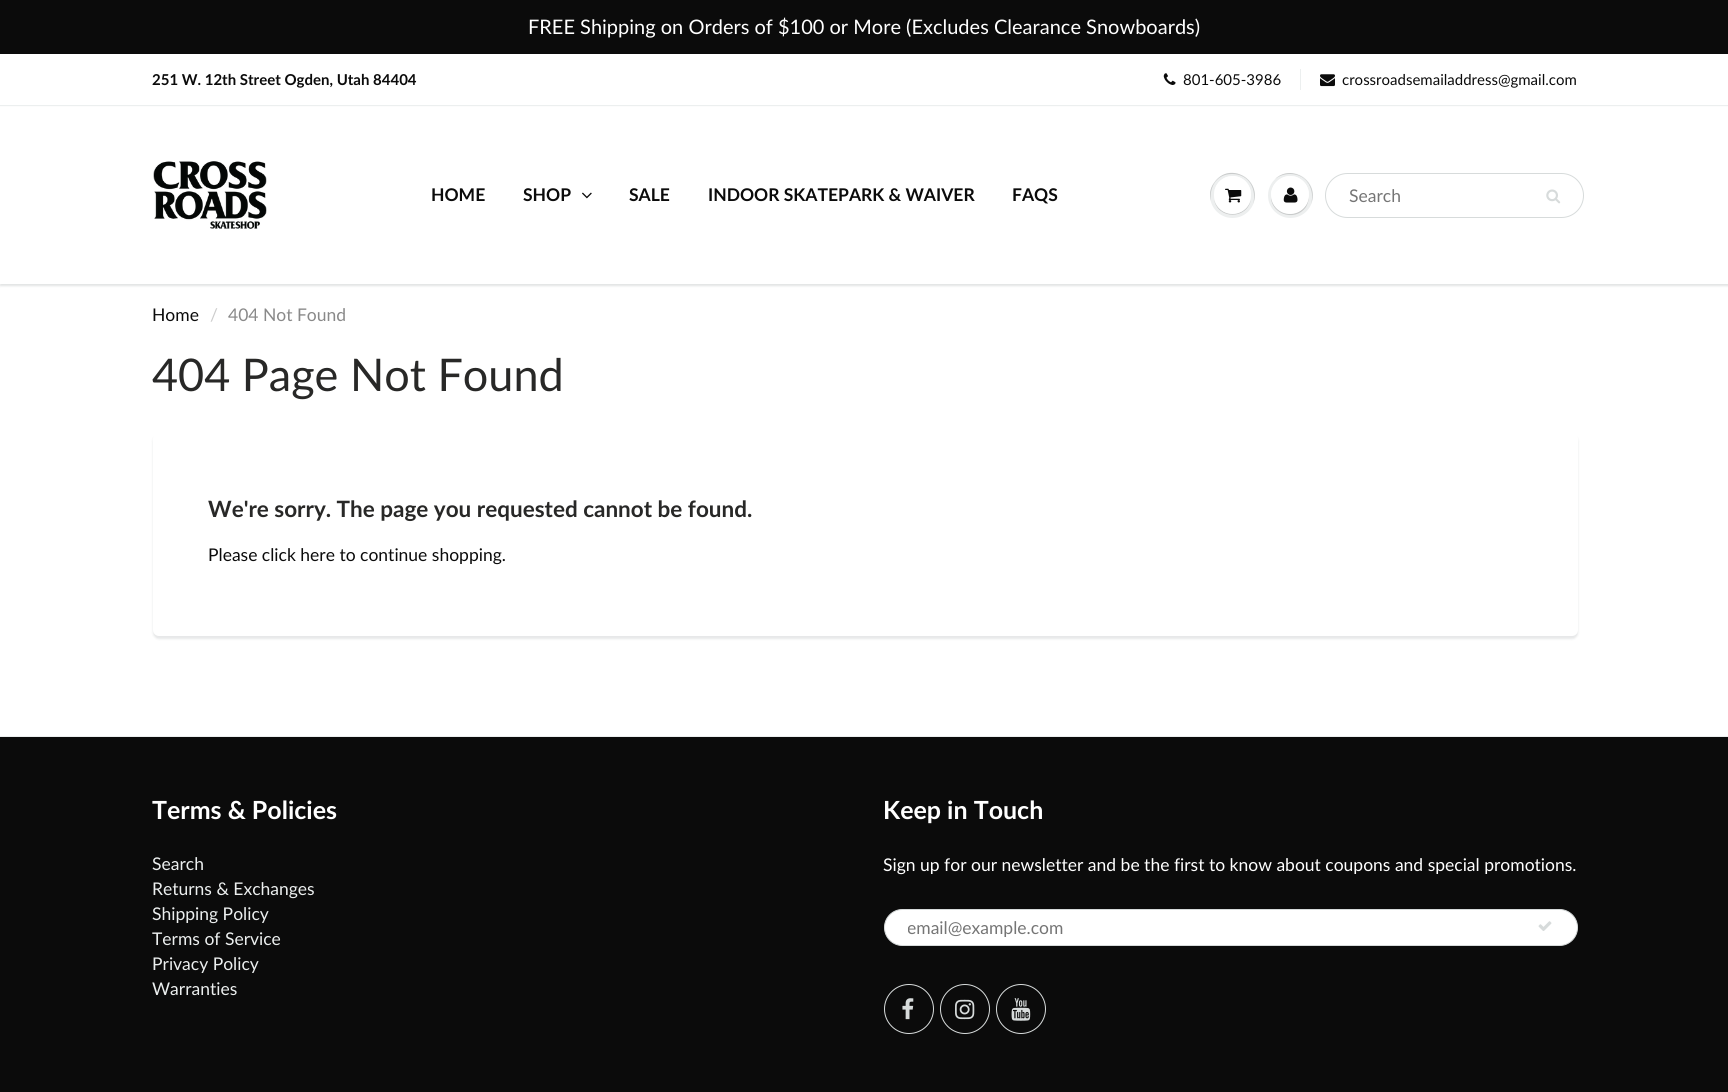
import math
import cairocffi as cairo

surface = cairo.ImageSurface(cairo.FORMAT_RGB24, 1728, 1092)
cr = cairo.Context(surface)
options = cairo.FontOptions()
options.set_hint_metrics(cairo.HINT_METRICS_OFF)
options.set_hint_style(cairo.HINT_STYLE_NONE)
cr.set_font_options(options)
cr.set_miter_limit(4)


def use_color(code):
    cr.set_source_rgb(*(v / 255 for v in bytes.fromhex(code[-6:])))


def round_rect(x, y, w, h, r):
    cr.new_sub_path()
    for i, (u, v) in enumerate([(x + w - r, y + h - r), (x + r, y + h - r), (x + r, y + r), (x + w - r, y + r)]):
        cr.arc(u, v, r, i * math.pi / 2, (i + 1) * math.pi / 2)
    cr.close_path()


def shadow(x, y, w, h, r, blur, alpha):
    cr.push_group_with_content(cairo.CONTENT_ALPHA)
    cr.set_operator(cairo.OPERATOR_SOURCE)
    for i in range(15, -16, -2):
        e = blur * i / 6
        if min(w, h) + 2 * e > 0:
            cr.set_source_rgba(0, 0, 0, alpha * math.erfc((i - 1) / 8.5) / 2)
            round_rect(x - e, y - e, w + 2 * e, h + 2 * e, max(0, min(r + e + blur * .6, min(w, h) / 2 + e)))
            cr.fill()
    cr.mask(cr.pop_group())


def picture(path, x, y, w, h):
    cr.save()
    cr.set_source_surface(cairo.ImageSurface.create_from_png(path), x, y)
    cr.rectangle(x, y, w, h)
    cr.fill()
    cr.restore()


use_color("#ffffff")
cr.paint()
use_color("#0b0b0b")
cr.rectangle(0, 0, 1728, 54)
cr.fill()
cr.select_font_face("Lato")
cr.set_font_size(20)
use_color("#ffffff")
cr.move_to(528, 34)
cr.show_text("FREE Shipping on Orders of $100 or More (Excludes Clearance Snowboards)")
cr.select_font_face("Lato", cairo.FONT_SLANT_NORMAL, cairo.FONT_WEIGHT_BOLD)
cr.set_font_size(15)
use_color("#0b0b0b")
cr.move_to(152, 85)
cr.show_text("251 W. 12th Street Ogden, Utah 84404")
picture("img1.png", 1163, 73, 13, 12)
cr.select_font_face("Lato")
cr.move_to(1183, 85)
cr.show_text("801-605-3986")
use_color("#ecefef")
cr.rectangle(1300, 69, 1, 21)
cr.fill()
picture("img2.png", 1320, 74, 15, 13)
use_color("#0b0b0b")
cr.move_to(1342, 85)
cr.show_text("crossroadsemailaddress@gmail.com")
use_color("#0b191c")
shadow(0, 108, 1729, 178, 0, 1, 0.12)
use_color("#ffffff")
cr.rectangle(0, 107, 1728, 177)
cr.fill()
use_color("#ecefef")
cr.rectangle(0, 105, 1728, 1)
cr.fill()
picture("img3.png", 153, 161, 114, 68)
cr.select_font_face("Lato", cairo.FONT_SLANT_NORMAL, cairo.FONT_WEIGHT_BOLD)
cr.set_font_size(17.5)
use_color("#0b0b0b")
cr.move_to(431, 201)
cr.show_text("HOME")
cr.move_to(523, 201)
cr.show_text("SHOP")
picture("img4.png", 582, 192, 10, 7)
cr.move_to(629, 201)
cr.show_text("SALE")
cr.move_to(708, 201)
cr.show_text("INDOOR SKATEPARK & WAIVER")
cr.move_to(1012, 201)
cr.show_text("FAQS")
use_color("#edefef")
cr.new_path()
cr.arc(1232.5, 195.5, 22.5, 0, 2 * math.pi)
cr.fill()
use_color("#c9cbcb")
cr.new_path()
cr.move_to(1232, 174)
cr.curve_to(1250, 174, 1257, 191, 1253, 204)
cr.curve_to(1263, 180, 1229, 160, 1214, 183)
cr.curve_to(1210, 188, 1209, 195, 1211, 201)
cr.curve_to(1209, 188, 1216, 174, 1232, 174)
cr.close_path()
cr.fill()
cr.new_path()
cr.move_to(1214, 199)
cr.curve_to(1217, 220, 1248, 220, 1251, 199)
cr.curve_to(1246.5, 218.5, 1218.5, 218.5, 1214, 199)
cr.close_path()
cr.fill()
use_color("#ffffff")
round_rect(1214, 176, 37, 38, 18.5)
cr.fill()
cr.new_path()
cr.move_to(1232, 178)
cr.curve_to(1246, 178, 1252, 189.5, 1250.5, 200)
cr.curve_to(1251.5, 196, 1251, 191, 1249.5, 187.5)
cr.curve_to(1241.5, 168.5, 1213.5, 174.5, 1214, 196)
cr.curve_to(1214, 187, 1220, 178, 1232, 178)
cr.close_path()
cr.fill()
picture("img5.png", 1225, 188, 17, 15)
use_color("#edefef")
cr.arc(1290.5, 195.5, 22.5, 0, 2 * math.pi)
cr.fill()
use_color("#c9cbcb")
cr.new_path()
cr.move_to(1290, 174)
cr.curve_to(1308, 174, 1315, 191, 1311, 204)
cr.curve_to(1320, 182, 1292, 163, 1275, 179)
cr.curve_to(1279, 176, 1284, 174, 1290, 174)
cr.close_path()
cr.fill()
cr.new_path()
cr.move_to(1271.5, 192.5)
cr.curve_to(1267, 213, 1294.5, 223.5, 1306, 207)
cr.curve_to(1308.5, 202.5, 1309.5, 197.5, 1308.5, 192.5)
cr.curve_to(1309, 197, 1308, 202, 1305.5, 205.5)
cr.curve_to(1294.5, 221.5, 1269, 212, 1271.5, 192.5)
cr.close_path()
cr.fill()
use_color("#ffffff")
cr.arc(1290, 195, 19, 0, 2 * math.pi)
cr.fill()
cr.new_path()
cr.move_to(1290, 178)
cr.curve_to(1303.5, 178, 1309.5, 189, 1308.5, 199)
cr.curve_to(1309.5, 194, 1308.5, 188.5, 1306, 184.5)
cr.curve_to(1294, 167, 1267.5, 179, 1271.5, 199)
cr.curve_to(1270.5, 189, 1276.5, 178, 1290, 178)
cr.close_path()
cr.fill()
picture("img6.png", 1283, 187, 15, 16)
round_rect(1325.5, 173.5, 258, 44, 22)
use_color("#d7dbdb")
cr.set_line_width(1)
cr.stroke()
cr.select_font_face("Lato")
use_color("#757575")
cr.move_to(1349, 202)
cr.show_text("Search")
picture("img7.png", 1546, 189, 15, 15)
use_color("#0b0b0b")
cr.move_to(152, 321)
cr.show_text("Home")
use_color("#cccccc")
cr.move_to(210, 321)
cr.show_text("/")
use_color("#898989")
cr.move_to(228, 321)
cr.show_text("404 Not Found")
cr.set_font_size(45)
use_color("#282827")
cr.move_to(152, 391)
cr.show_text("404 Page Not Found")
use_color("#0b191c")
shadow(153, 435, 1425, 204, 6, 1, 0.1)
use_color("#ffffff")
round_rect(153, 433, 1425, 203, 6)
cr.fill()
cr.select_font_face("Lato", cairo.FONT_SLANT_NORMAL, cairo.FONT_WEIGHT_BOLD)
cr.set_font_size(22.5)
use_color("#282827")
cr.move_to(208, 517)
cr.show_text("We're sorry. The page you requested cannot be found.")
cr.select_font_face("Lato")
cr.set_font_size(17.5)
use_color("#0b0b0b")
cr.move_to(208, 561)
cr.show_text("Please click here to continue shopping.")
cr.rectangle(0, 737, 1728, 355)
cr.fill()
use_color("#ecefef")
cr.rectangle(0, 736, 1728, 1)
cr.fill()
cr.select_font_face("Lato", cairo.FONT_SLANT_NORMAL, cairo.FONT_WEIGHT_BOLD)
cr.set_font_size(25)
use_color("#ffffff")
cr.move_to(152, 819)
cr.show_text("Terms & Policies")
cr.select_font_face("Lato")
cr.set_font_size(17.5)
use_color("#ecefef")
cr.move_to(152, 870)
cr.show_text("Search")
cr.move_to(152, 895)
cr.show_text("Returns & Exchanges")
cr.move_to(152, 920)
cr.show_text("Shipping Policy")
cr.move_to(152, 945)
cr.show_text("Terms of Service")
cr.move_to(152, 970)
cr.show_text("Privacy Policy")
cr.move_to(152, 995)
cr.show_text("Warranties")
cr.select_font_face("Lato", cairo.FONT_SLANT_NORMAL, cairo.FONT_WEIGHT_BOLD)
cr.set_font_size(25)
use_color("#ffffff")
cr.move_to(883, 819)
cr.show_text("Keep in Touch")
cr.select_font_face("Lato")
cr.set_font_size(17.5)
cr.move_to(883, 871)
cr.show_text("Sign up for our newsletter and be the first to know about coupons and special promotions.")
round_rect(884.5, 909.5, 693, 36, 18)
cr.fill_preserve()
use_color("#d7dbdb")
cr.stroke()
cr.save()
cr.rectangle(908, 916, 625, 22)
cr.clip()
use_color("#757575")
cr.move_to(907, 934)
cr.show_text("email@example.com")
cr.restore()
picture("img8.png", 1538, 921, 14, 10)
cr.arc(909, 1009, 24.5, 0, 2 * math.pi)
cr.stroke()
picture("img9.png", 902, 998, 12, 22)
cr.arc(965, 1009, 24.5, 0, 2 * math.pi)
cr.stroke()
picture("img10.png", 955, 999, 20, 21)
cr.arc(1021, 1009, 24.5, 0, 2 * math.pi)
cr.stroke()
picture("img11.png", 1011, 998, 20, 23)
surface.write_to_png("result.png")
